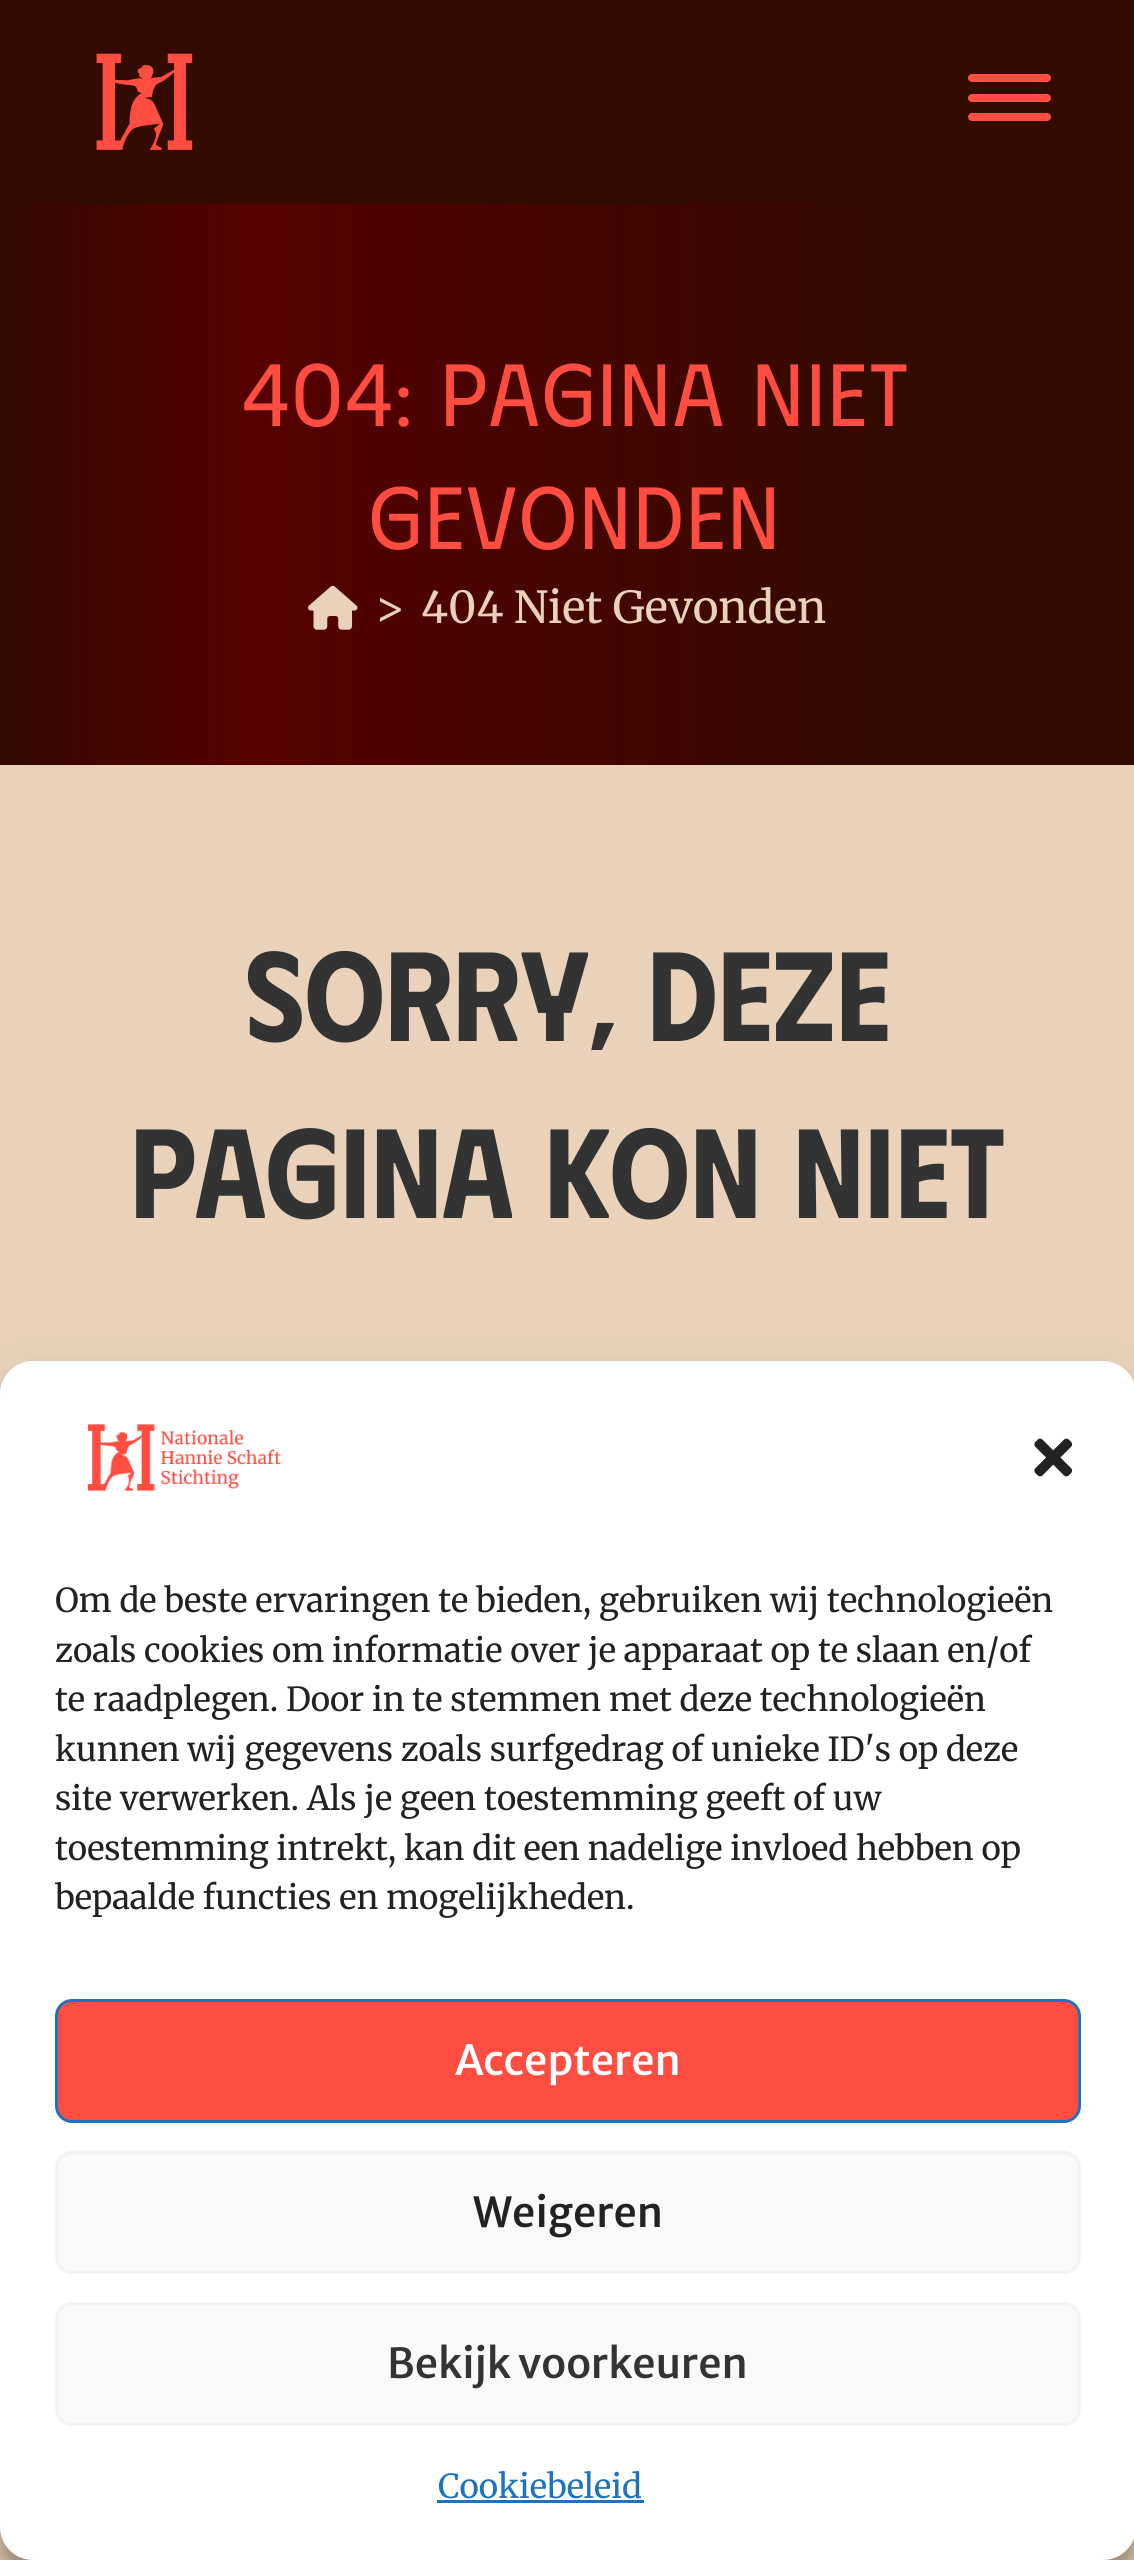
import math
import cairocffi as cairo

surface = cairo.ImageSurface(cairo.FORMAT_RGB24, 1134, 2560)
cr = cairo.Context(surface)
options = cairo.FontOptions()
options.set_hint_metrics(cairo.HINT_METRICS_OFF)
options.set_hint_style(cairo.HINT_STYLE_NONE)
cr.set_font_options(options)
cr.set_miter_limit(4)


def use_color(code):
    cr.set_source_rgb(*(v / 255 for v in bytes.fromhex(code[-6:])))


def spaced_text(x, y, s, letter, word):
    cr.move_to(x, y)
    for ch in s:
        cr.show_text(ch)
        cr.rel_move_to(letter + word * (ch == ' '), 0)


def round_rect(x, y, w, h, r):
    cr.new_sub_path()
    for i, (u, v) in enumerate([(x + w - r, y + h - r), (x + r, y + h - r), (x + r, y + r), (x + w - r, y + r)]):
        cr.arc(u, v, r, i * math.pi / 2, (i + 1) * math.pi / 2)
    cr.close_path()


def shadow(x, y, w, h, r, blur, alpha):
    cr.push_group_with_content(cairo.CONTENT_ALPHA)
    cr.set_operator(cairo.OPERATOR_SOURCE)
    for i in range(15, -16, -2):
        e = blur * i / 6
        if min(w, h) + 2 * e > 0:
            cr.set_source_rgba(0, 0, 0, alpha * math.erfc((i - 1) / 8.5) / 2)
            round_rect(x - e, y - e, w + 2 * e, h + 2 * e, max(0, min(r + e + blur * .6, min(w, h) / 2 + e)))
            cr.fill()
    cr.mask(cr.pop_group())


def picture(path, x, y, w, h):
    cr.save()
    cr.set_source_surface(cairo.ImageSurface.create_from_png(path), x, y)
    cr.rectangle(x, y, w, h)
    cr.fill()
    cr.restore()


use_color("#e9d2b9")
cr.paint()
use_color("#340b00")
cr.rectangle(0, 0, 1134, 204)
cr.fill()
picture("img1.png", 96, 53, 97, 97)
use_color("#ff4d41")
round_rect(968, 94, 83, 8, 4)
cr.fill()
round_rect(968, 74, 83, 8, 4)
cr.fill()
round_rect(968, 113, 83, 8, 4)
cr.fill()
gradient = cairo.LinearGradient(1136, 382, 0, 382)
gradient.add_color_stop_rgba(0.22, 0.204, 0.043, 0, 1)
gradient.add_color_stop_rgba(0.78, 0.337, 0, 0.004, 1)
gradient.add_color_stop_rgba(1, 0.204, 0.043, 0, 1)
cr.set_source(gradient)
cr.rectangle(0, 204, 1134, 561)
cr.fill()
cr.select_font_face("Phudu")
cr.set_font_size(88)
use_color("#ff4d41")
spaced_text(242, 426, "404: PAGINA NIET", 2.75, 0)
spaced_text(369, 549, "GEVONDEN", 2.75, 0)
picture("img2.png", 308, 585, 50, 45)
cr.select_font_face("Merriweather")
cr.set_font_size(44)
use_color("#e9d2b9")
cr.move_to(375, 623)
cr.show_text(">")
cr.move_to(421, 623)
cr.show_text("404 Niet Gevonden")
cr.select_font_face("Phudu SemiBold")
cr.set_font_size(126.5)
use_color("#333333")
cr.move_to(245, 1041)
cr.show_text("Sorry, deze")
cr.move_to(130, 1218)
cr.show_text("pagina kon niet")
use_color("#000000")
shadow(0, 1378, 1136, 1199, 33, 8, 0.23)
shadow(0, 1389, 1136, 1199, 33, 27.5, 0.19)
use_color("#ffffff")
round_rect(0, 1361, 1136, 1199, 33)
cr.fill()
picture("img3.png", 87, 1424, 194, 67)
picture("img4.png", 1034, 1438, 39, 39)
cr.select_font_face("Merriweather")
cr.set_font_size(33)
use_color("#222222")
cr.move_to(55, 1612)
cr.show_text("Om de beste ervaringen te bieden, gebruiken wij technologieën")
cr.move_to(55, 1662)
cr.show_text("zoals cookies om informatie over je apparaat op te slaan en/of")
cr.move_to(55, 1711)
cr.show_text("te raadplegen. Door in te stemmen met deze technologieën")
cr.move_to(55, 1761)
cr.show_text("kunnen wij gegevens zoals surfgedrag of unieke ID's op deze")
cr.move_to(55, 1810)
cr.show_text("site verwerken. Als je geen toestemming geeft of uw")
cr.move_to(55, 1860)
cr.show_text("toestemming intrekt, kan dit een nadelige invloed hebben op")
cr.move_to(55, 1909)
cr.show_text("bepaalde functies en mogelijkheden.")
use_color("#ff4d41")
round_rect(56.5, 2000.5, 1023, 121, 15.5)
cr.fill_preserve()
use_color("#1e73be")
cr.set_line_width(3)
cr.stroke()
cr.select_font_face("Merriweather Sans Medium")
cr.set_font_size(41.25)
use_color("#ffffff")
cr.move_to(455, 2075)
cr.show_text("Accepteren")
use_color("#f9f9f9")
round_rect(56.5, 2152.5, 1023, 120, 15.5)
cr.fill_preserve()
use_color("#f2f2f2")
cr.stroke()
use_color("#222222")
cr.move_to(473, 2227)
cr.show_text("Weigeren")
use_color("#f9f9f9")
round_rect(56.5, 2303.5, 1023, 121, 15.5)
cr.fill_preserve()
use_color("#f2f2f2")
cr.stroke()
use_color("#333333")
cr.move_to(387, 2378)
cr.show_text("Bekijk voorkeuren")
cr.select_font_face("Merriweather")
cr.set_font_size(33)
use_color("#1e73be")
cr.move_to(438, 2498)
cr.show_text("Cookiebeleid")
cr.rectangle(437, 2500, 207, 3)
cr.fill()
surface.write_to_png("result.png")
